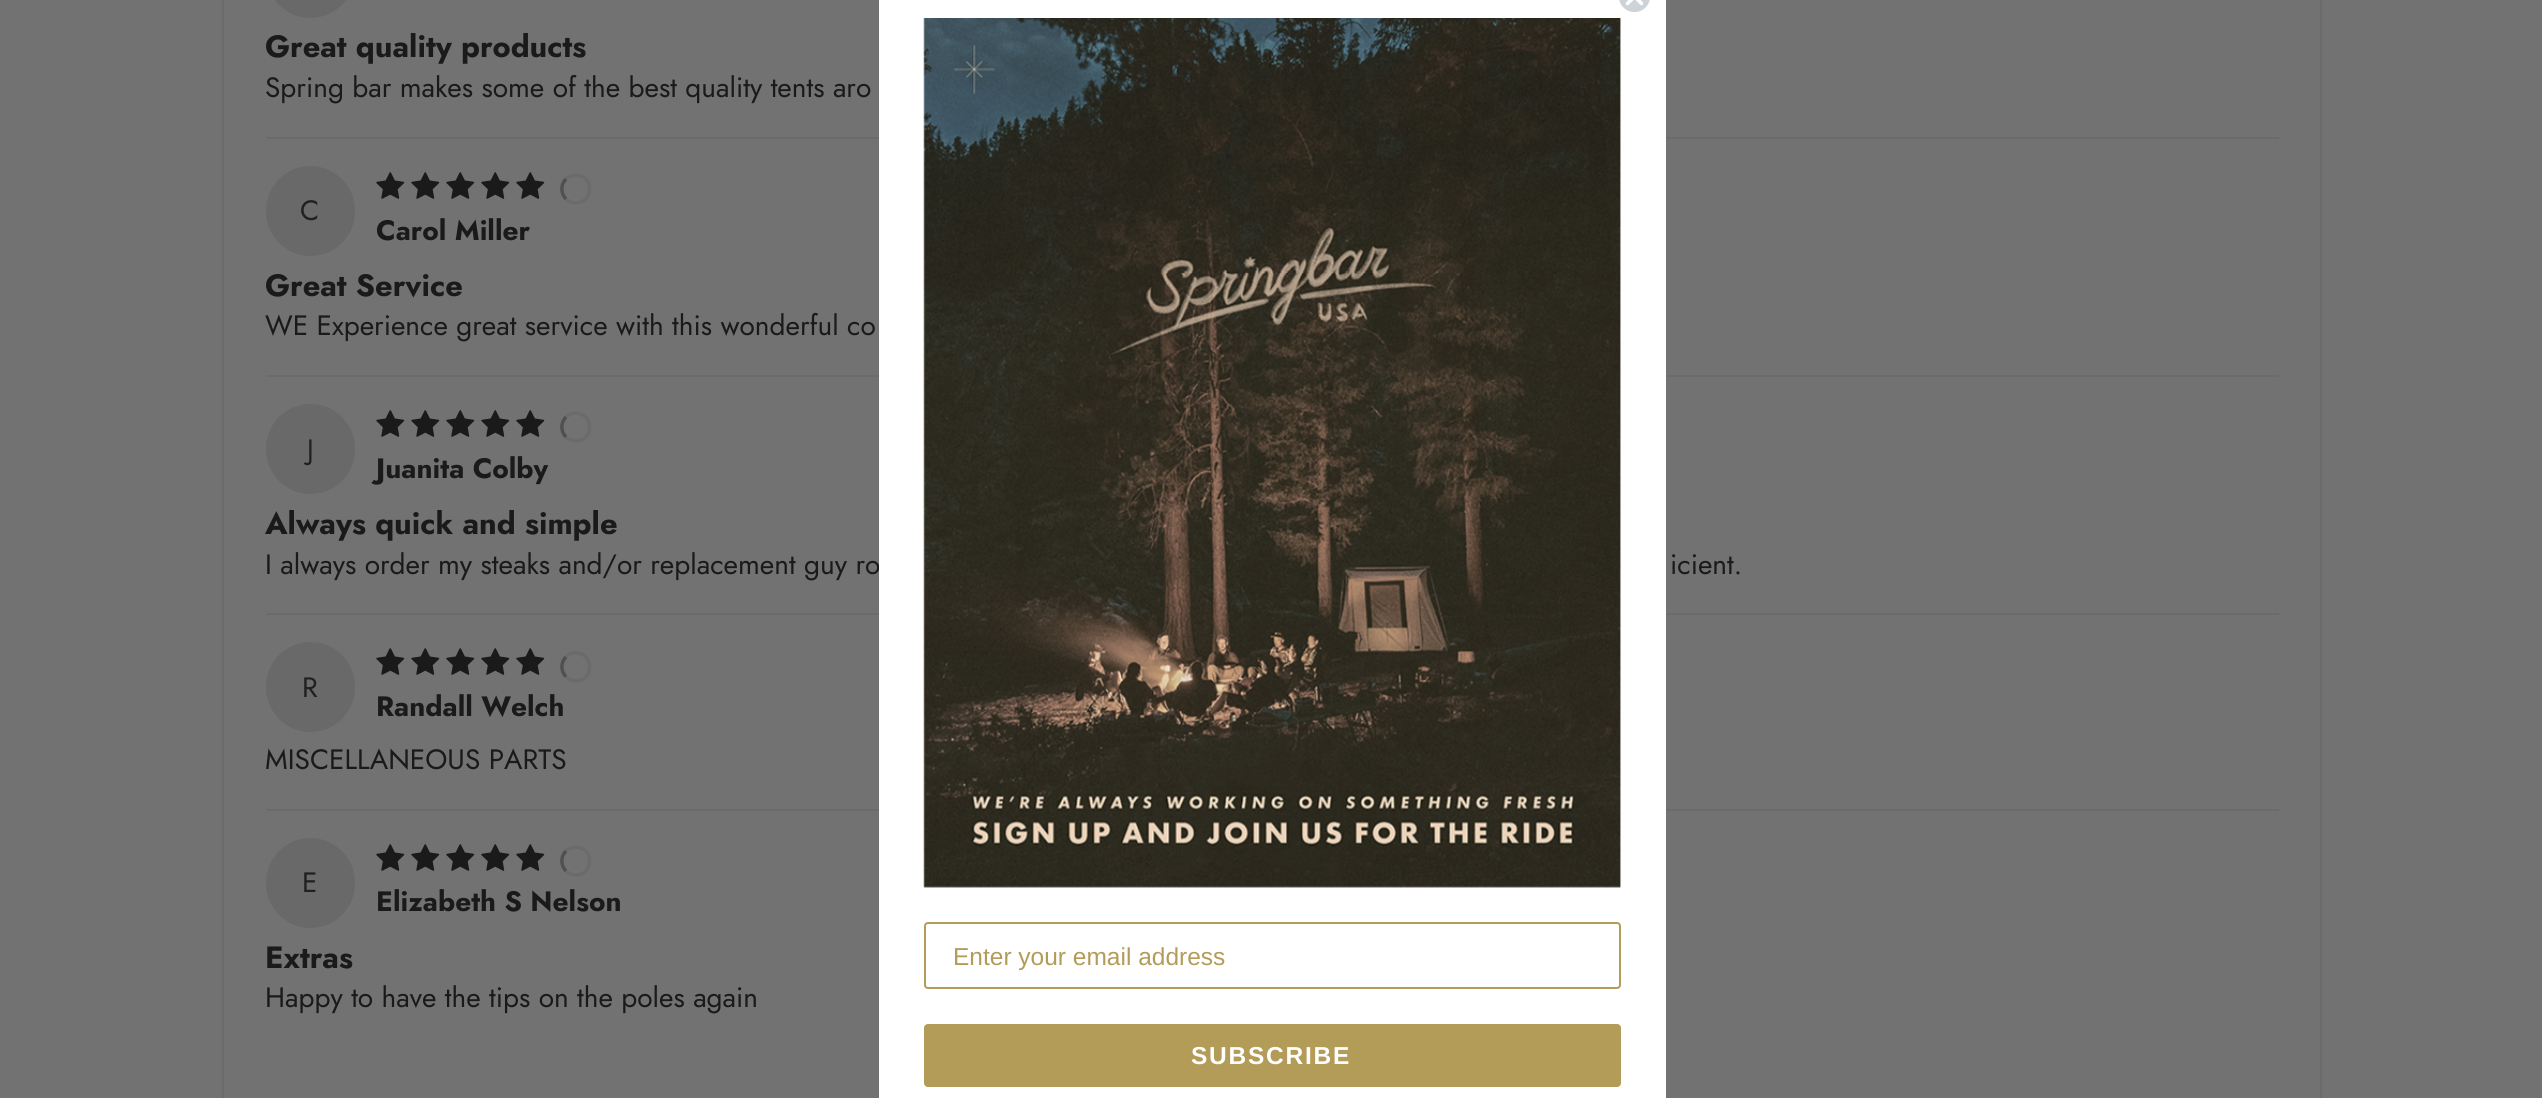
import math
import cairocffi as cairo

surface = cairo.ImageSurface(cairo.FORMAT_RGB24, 2542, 1098)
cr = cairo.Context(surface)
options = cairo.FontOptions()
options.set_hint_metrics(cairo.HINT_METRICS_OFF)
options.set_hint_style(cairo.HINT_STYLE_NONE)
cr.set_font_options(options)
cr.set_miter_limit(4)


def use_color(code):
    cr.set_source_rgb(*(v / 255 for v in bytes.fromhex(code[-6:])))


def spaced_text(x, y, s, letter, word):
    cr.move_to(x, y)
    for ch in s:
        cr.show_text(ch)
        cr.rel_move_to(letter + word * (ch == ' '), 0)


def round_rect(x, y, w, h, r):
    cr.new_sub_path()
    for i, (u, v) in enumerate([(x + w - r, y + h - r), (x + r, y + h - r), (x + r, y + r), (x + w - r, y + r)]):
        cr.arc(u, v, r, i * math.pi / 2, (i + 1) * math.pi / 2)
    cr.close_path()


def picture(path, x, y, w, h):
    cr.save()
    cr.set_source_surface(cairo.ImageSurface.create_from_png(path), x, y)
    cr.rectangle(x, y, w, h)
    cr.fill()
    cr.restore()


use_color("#727272")
cr.paint()
cr.rectangle(223, -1, 2098, 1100)
use_color("#6b6b6b")
cr.stroke()
use_color("#696969")
round_rect(266, -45, 89, 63, 44.5)
cr.fill()
cr.select_font_face("Jost", cairo.FONT_SLANT_NORMAL, cairo.FONT_WEIGHT_BOLD)
cr.set_font_size(30.75)
use_color("#1a1a1a")
cr.move_to(265, 57)
cr.show_text("Great quality products")
cr.select_font_face("Jost")
cr.set_font_size(28)
cr.move_to(265, 97)
cr.show_text("Spring bar makes some of the best quality tents aro")
use_color("#6b6b6b")
cr.rectangle(266, 137, 2013, 2)
cr.fill()
picture("img1.png", 376, 172, 29, 27)
picture("img1.png", 411, 172, 29, 27)
picture("img1.png", 446, 172, 29, 27)
picture("img1.png", 481, 172, 29, 27)
picture("img1.png", 516, 172, 29, 27)
cr.new_path()
cr.move_to(566, 179)
cr.curve_to(568.5, 176.5, 572, 175, 576, 175)
cr.curve_to(592.5, 175, 595, 199.5, 578.5, 202.5)
cr.curve_to(574, 203.5, 569, 202, 566, 199)
cr.set_line_width(3.5)
cr.stroke()
cr.new_path()
cr.move_to(566, 199)
cr.curve_to(560.5, 193.5, 560.5, 184.5, 566, 179)
use_color("#505050")
cr.stroke()
use_color("#696969")
round_rect(266, 166, 89, 90, 44.5)
cr.fill()
use_color("#202020")
cr.move_to(300, 220)
cr.show_text("C")
cr.select_font_face("Jost", cairo.FONT_SLANT_NORMAL, cairo.FONT_WEIGHT_BOLD)
use_color("#1a1a1a")
cr.move_to(376, 240)
cr.show_text("Carol Miller")
cr.set_font_size(30.75)
cr.move_to(265, 296)
cr.show_text("Great Service")
cr.select_font_face("Jost")
cr.set_font_size(28)
cr.move_to(265, 335)
cr.show_text("WE Experience great service with this wonderful co")
use_color("#6b6b6b")
cr.rectangle(266, 375, 2013, 2)
cr.fill()
picture("img1.png", 376, 410, 29, 27)
picture("img1.png", 411, 410, 29, 27)
picture("img1.png", 446, 410, 29, 27)
picture("img1.png", 481, 410, 29, 27)
picture("img1.png", 516, 410, 29, 27)
cr.new_path()
cr.move_to(566, 417)
cr.curve_to(569, 414, 574, 412.5, 578.5, 413.5)
cr.curve_to(595, 416.5, 592.5, 441, 576, 441)
cr.curve_to(572, 441, 568.5, 439.5, 566, 437)
cr.stroke()
cr.new_path()
cr.move_to(566, 437)
cr.curve_to(560.5, 431.5, 560.5, 422.5, 566, 417)
use_color("#505050")
cr.stroke()
use_color("#696969")
round_rect(266, 404, 89, 90, 44.5)
cr.fill()
use_color("#202020")
cr.move_to(307, 459)
cr.show_text("J")
cr.select_font_face("Jost", cairo.FONT_SLANT_NORMAL, cairo.FONT_WEIGHT_BOLD)
use_color("#1a1a1a")
cr.move_to(376, 478)
cr.show_text("Juanita Colby")
cr.set_font_size(30.75)
cr.move_to(265, 534)
cr.show_text("Always quick and simple")
cr.select_font_face("Jost")
cr.set_font_size(28)
cr.move_to(265, 574)
cr.show_text("I always order my steaks and/or replacement guy ro")
cr.move_to(1670, 574)
cr.show_text("icient.")
use_color("#6b6b6b")
cr.rectangle(266, 613, 2013, 2)
cr.fill()
picture("img1.png", 376, 648, 29, 27)
picture("img1.png", 411, 648, 29, 27)
picture("img1.png", 446, 648, 29, 27)
picture("img1.png", 481, 648, 29, 27)
picture("img1.png", 516, 648, 29, 27)
cr.new_path()
cr.move_to(566, 657)
cr.curve_to(569, 653.5, 574, 652, 578.5, 653)
cr.curve_to(595, 656.5, 592.5, 681, 576, 681)
cr.curve_to(572, 681, 568.5, 679.5, 566, 676.5)
cr.stroke()
cr.new_path()
cr.move_to(566, 676.5)
cr.curve_to(560.5, 671.5, 560.5, 662, 566, 657)
use_color("#505050")
cr.stroke()
use_color("#696969")
round_rect(266, 642, 89, 90, 44.5)
cr.fill()
use_color("#202020")
cr.move_to(302, 697)
cr.show_text("R")
cr.select_font_face("Jost", cairo.FONT_SLANT_NORMAL, cairo.FONT_WEIGHT_BOLD)
use_color("#1a1a1a")
cr.move_to(376, 716)
cr.show_text("Randall Welch")
cr.select_font_face("Jost")
cr.move_to(265, 769)
cr.show_text("MISCELLANEOUS PARTS")
use_color("#6b6b6b")
cr.rectangle(266, 809, 2013, 2)
cr.fill()
picture("img1.png", 376, 844, 29, 27)
picture("img1.png", 411, 844, 29, 27)
picture("img1.png", 446, 844, 29, 27)
picture("img1.png", 481, 844, 29, 27)
picture("img1.png", 516, 844, 29, 27)
cr.new_path()
cr.move_to(566, 851)
cr.curve_to(569, 848, 574, 846.5, 578.5, 847.5)
cr.curve_to(595, 850.5, 592.5, 875, 576, 875)
cr.curve_to(572, 875, 568.5, 873.5, 566, 871)
cr.stroke()
cr.new_path()
cr.move_to(566, 871)
cr.curve_to(560.5, 865.5, 560.5, 856.5, 566, 851)
use_color("#505050")
cr.stroke()
use_color("#696969")
round_rect(266, 838, 89, 90, 44.5)
cr.fill()
use_color("#202020")
cr.move_to(302, 892)
cr.show_text("E")
cr.select_font_face("Jost", cairo.FONT_SLANT_NORMAL, cairo.FONT_WEIGHT_BOLD)
use_color("#1a1a1a")
cr.move_to(376, 911)
cr.show_text("Elizabeth S Nelson")
cr.set_font_size(30.75)
cr.move_to(265, 968)
cr.show_text("Extras")
cr.select_font_face("Jost")
cr.set_font_size(28)
cr.move_to(265, 1007)
cr.show_text("Happy to have the tips on the poles again")
use_color("#ffffff")
cr.rectangle(879, 0, 787, 1098)
cr.fill()
use_color("#ced3d8")
cr.arc(1634.5, -3.5, 16.5, 0, 2 * math.pi)
cr.fill_preserve()
use_color("#ffffff")
cr.set_line_width(1.8)
cr.stroke()
cr.new_path()
cr.move_to(1627.5, -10.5)
cr.line_to(1641.5, 3.5)
cr.move_to(1627.5, 3.5)
cr.line_to(1641.5, -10.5)
cr.close_path()
cr.set_line_width(3.5)
cr.set_line_cap(cairo.LINE_CAP_ROUND)
cr.set_line_join(cairo.LINE_JOIN_ROUND)
cr.stroke()
picture("img2.png", 923, 18, 698, 870)
round_rect(925, 923, 695, 65, 3)
use_color("#b39b58")
cr.set_line_width(2)
cr.set_line_cap(cairo.LINE_CAP_BUTT)
cr.set_line_join(cairo.LINE_JOIN_MITER)
cr.stroke()
cr.select_font_face("Liberation Sans")
cr.set_font_size(24.5)
cr.move_to(953, 965)
cr.show_text("Enter your email address")
round_rect(924, 1024, 697, 63, 4)
cr.fill()
cr.select_font_face("Liberation Sans", cairo.FONT_SLANT_NORMAL, cairo.FONT_WEIGHT_BOLD)
use_color("#ffffff")
spaced_text(1191, 1064, "SUBSCRIBE", 1.75, 0)
surface.write_to_png("result.png")
